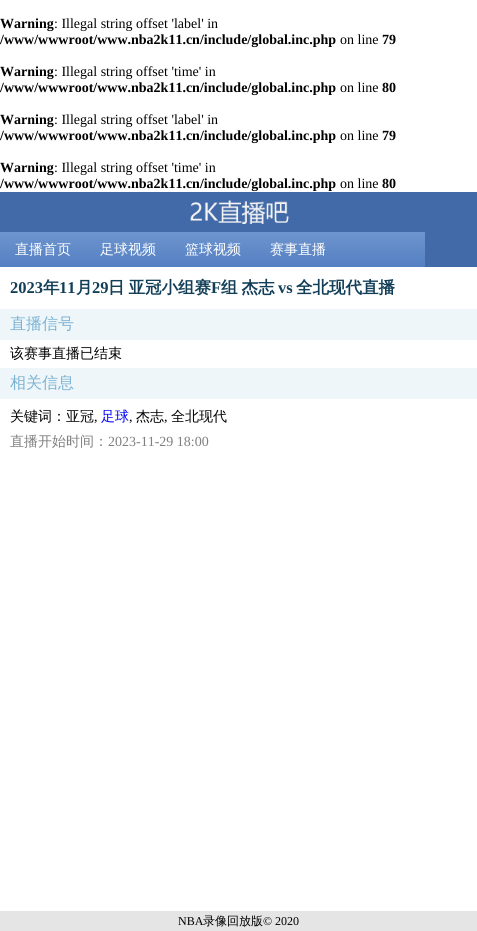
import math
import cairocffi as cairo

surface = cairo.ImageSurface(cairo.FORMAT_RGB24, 477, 931)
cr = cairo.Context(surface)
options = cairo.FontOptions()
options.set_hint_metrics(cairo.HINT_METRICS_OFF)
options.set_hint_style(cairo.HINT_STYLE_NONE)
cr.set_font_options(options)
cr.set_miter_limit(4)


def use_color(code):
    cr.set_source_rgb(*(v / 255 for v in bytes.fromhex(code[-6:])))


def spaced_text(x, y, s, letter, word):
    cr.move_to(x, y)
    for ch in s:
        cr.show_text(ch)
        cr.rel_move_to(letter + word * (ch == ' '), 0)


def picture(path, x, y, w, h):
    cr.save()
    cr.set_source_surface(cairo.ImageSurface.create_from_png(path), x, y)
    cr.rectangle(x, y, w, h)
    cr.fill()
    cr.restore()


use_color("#ffffff")
cr.paint()
cr.select_font_face("Liberation Serif", cairo.FONT_SLANT_NORMAL, cairo.FONT_WEIGHT_BOLD)
cr.set_font_size(14)
use_color("#000000")
cr.move_to(0, 28)
cr.show_text("Warning")
cr.select_font_face("Liberation Serif")
cr.move_to(54, 28)
cr.show_text(": Illegal string offset 'label' in")
cr.select_font_face("Liberation Serif", cairo.FONT_SLANT_NORMAL, cairo.FONT_WEIGHT_BOLD)
cr.move_to(0, 44)
cr.show_text("/www/wwwroot/www.nba2k11.cn/include/global.inc.php")
cr.select_font_face("Liberation Serif")
cr.move_to(340, 44)
cr.show_text("on line")
cr.select_font_face("Liberation Serif", cairo.FONT_SLANT_NORMAL, cairo.FONT_WEIGHT_BOLD)
cr.move_to(382, 44)
cr.show_text("79")
cr.move_to(0, 76)
cr.show_text("Warning")
cr.select_font_face("Liberation Serif")
cr.move_to(54, 76)
cr.show_text(": Illegal string offset 'time' in")
cr.select_font_face("Liberation Serif", cairo.FONT_SLANT_NORMAL, cairo.FONT_WEIGHT_BOLD)
cr.move_to(0, 92)
cr.show_text("/www/wwwroot/www.nba2k11.cn/include/global.inc.php")
cr.select_font_face("Liberation Serif")
cr.move_to(340, 92)
cr.show_text("on line")
cr.select_font_face("Liberation Serif", cairo.FONT_SLANT_NORMAL, cairo.FONT_WEIGHT_BOLD)
cr.move_to(382, 92)
cr.show_text("80")
cr.move_to(0, 124)
cr.show_text("Warning")
cr.select_font_face("Liberation Serif")
cr.move_to(54, 124)
cr.show_text(": Illegal string offset 'label' in")
cr.select_font_face("Liberation Serif", cairo.FONT_SLANT_NORMAL, cairo.FONT_WEIGHT_BOLD)
cr.move_to(0, 140)
cr.show_text("/www/wwwroot/www.nba2k11.cn/include/global.inc.php")
cr.select_font_face("Liberation Serif")
cr.move_to(340, 140)
cr.show_text("on line")
cr.select_font_face("Liberation Serif", cairo.FONT_SLANT_NORMAL, cairo.FONT_WEIGHT_BOLD)
cr.move_to(382, 140)
cr.show_text("79")
cr.move_to(0, 172)
cr.show_text("Warning")
cr.select_font_face("Liberation Serif")
cr.move_to(54, 172)
cr.show_text(": Illegal string offset 'time' in")
cr.select_font_face("Liberation Serif", cairo.FONT_SLANT_NORMAL, cairo.FONT_WEIGHT_BOLD)
cr.move_to(0, 188)
cr.show_text("/www/wwwroot/www.nba2k11.cn/include/global.inc.php")
cr.select_font_face("Liberation Serif")
cr.move_to(340, 188)
cr.show_text("on line")
cr.select_font_face("Liberation Serif", cairo.FONT_SLANT_NORMAL, cairo.FONT_WEIGHT_BOLD)
cr.move_to(382, 188)
cr.show_text("80")
use_color("#436aa8")
cr.rectangle(0, 192, 477, 75)
cr.fill()
picture("img1.png", 190, 200, 99, 24)
gradient = cairo.LinearGradient(213, 232, 213, 267)
gradient.add_color_stop_rgba(0, 0.427, 0.584, 0.808, 1)
gradient.add_color_stop_rgba(1, 0.329, 0.498, 0.761, 1)
cr.set_source(gradient)
cr.rectangle(0, 232, 425, 35)
cr.fill()
cr.select_font_face("WenQuanYi Zen Hei Medium")
use_color("#ffffff")
cr.move_to(15, 254)
cr.show_text("直播首页")
cr.move_to(100, 254)
cr.show_text("足球视频")
cr.move_to(185, 254)
cr.show_text("篮球视频")
cr.move_to(270, 254)
cr.show_text("赛事直播")
cr.select_font_face("Liberation Serif", cairo.FONT_SLANT_NORMAL, cairo.FONT_WEIGHT_BOLD)
cr.set_font_size(16.5)
use_color("#123e57")
cr.move_to(10, 293)
cr.show_text("2023")
cr.select_font_face("WenQuanYi Zen Hei", cairo.FONT_SLANT_NORMAL, cairo.FONT_WEIGHT_BOLD)
cr.move_to(43, 293)
cr.show_text("年")
cr.select_font_face("Liberation Serif", cairo.FONT_SLANT_NORMAL, cairo.FONT_WEIGHT_BOLD)
cr.move_to(59, 293)
cr.show_text("11")
cr.select_font_face("WenQuanYi Zen Hei", cairo.FONT_SLANT_NORMAL, cairo.FONT_WEIGHT_BOLD)
cr.move_to(76, 293)
cr.show_text("月")
cr.select_font_face("Liberation Serif", cairo.FONT_SLANT_NORMAL, cairo.FONT_WEIGHT_BOLD)
cr.move_to(92, 293)
cr.show_text("29")
cr.select_font_face("WenQuanYi Zen Hei", cairo.FONT_SLANT_NORMAL, cairo.FONT_WEIGHT_BOLD)
spaced_text(108, 293, "日 亚冠小组赛", 0, -1)
cr.select_font_face("Liberation Serif", cairo.FONT_SLANT_NORMAL, cairo.FONT_WEIGHT_BOLD)
cr.move_to(211, 293)
cr.show_text("F")
cr.select_font_face("WenQuanYi Zen Hei", cairo.FONT_SLANT_NORMAL, cairo.FONT_WEIGHT_BOLD)
spaced_text(221, 293, "组 杰志", 0, -1)
cr.select_font_face("Liberation Serif", cairo.FONT_SLANT_NORMAL, cairo.FONT_WEIGHT_BOLD)
cr.move_to(278, 293)
cr.show_text("vs")
cr.select_font_face("WenQuanYi Zen Hei", cairo.FONT_SLANT_NORMAL, cairo.FONT_WEIGHT_BOLD)
cr.move_to(296, 293)
cr.show_text("全北现代直播")
use_color("#eef6f9")
cr.rectangle(0, 309, 477, 31)
cr.fill()
cr.select_font_face("WenQuanYi Zen Hei Medium")
cr.set_font_size(16)
use_color("#7cb2d2")
cr.move_to(10, 329)
cr.show_text("直播信号")
cr.set_font_size(14)
use_color("#000000")
cr.move_to(10, 358)
cr.show_text("该赛事直播已结束")
use_color("#eef6f9")
cr.rectangle(0, 368, 477, 31)
cr.fill()
cr.set_font_size(16)
use_color("#7cb2d2")
cr.move_to(10, 388)
cr.show_text("相关信息")
cr.set_font_size(14)
use_color("#000000")
cr.move_to(10, 421)
cr.show_text("关键词：亚冠")
cr.select_font_face("Liberation Serif")
cr.move_to(94, 421)
cr.show_text(",")
cr.select_font_face("WenQuanYi Zen Hei Medium")
use_color("#0000ff")
cr.move_to(101, 421)
cr.show_text("足球")
cr.select_font_face("Liberation Serif")
use_color("#000000")
cr.move_to(129, 421)
cr.show_text(",")
cr.select_font_face("WenQuanYi Zen Hei Medium")
cr.move_to(136, 421)
cr.show_text("杰志")
cr.select_font_face("Liberation Serif")
cr.move_to(164, 421)
cr.show_text(",")
cr.select_font_face("WenQuanYi Zen Hei Medium")
cr.move_to(171, 421)
cr.show_text("全北现代")
use_color("#808080")
cr.move_to(10, 446)
cr.show_text("直播开始时间：")
cr.select_font_face("Liberation Serif")
cr.move_to(108, 446)
cr.show_text("2023-11-29 18:00")
use_color("#e5e5e5")
cr.rectangle(0, 911, 477, 20)
cr.fill()
cr.set_font_size(12)
use_color("#000000")
cr.move_to(178, 925)
cr.show_text("NBA")
cr.select_font_face("WenQuanYi Zen Hei Medium")
cr.move_to(203, 925)
cr.show_text("录像回放版")
cr.select_font_face("Liberation Serif")
cr.move_to(263, 925)
cr.show_text("© 2020")
surface.write_to_png("result.png")
